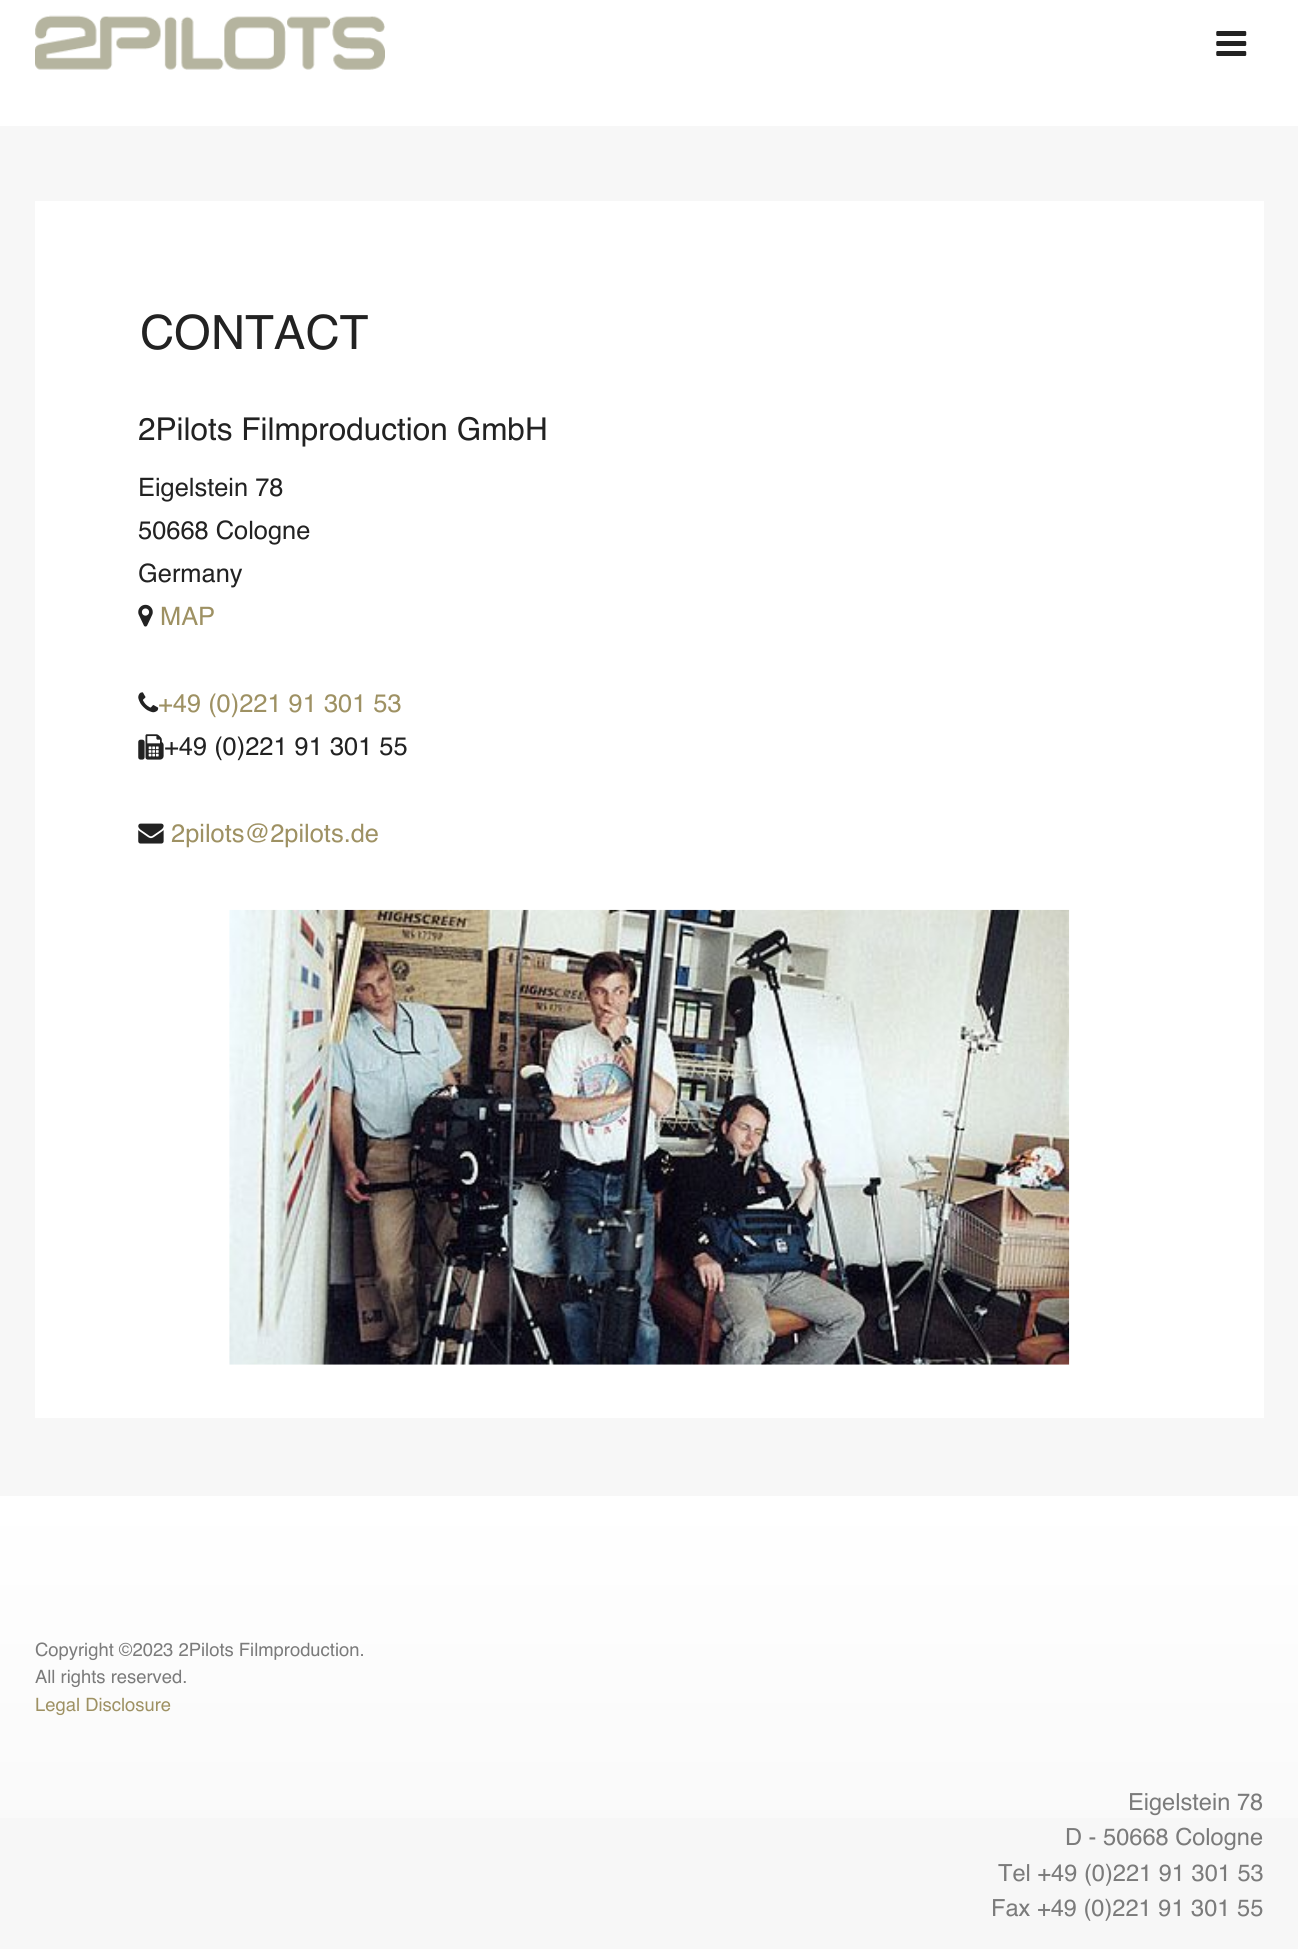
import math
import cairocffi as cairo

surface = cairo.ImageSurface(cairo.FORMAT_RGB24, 1298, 1949)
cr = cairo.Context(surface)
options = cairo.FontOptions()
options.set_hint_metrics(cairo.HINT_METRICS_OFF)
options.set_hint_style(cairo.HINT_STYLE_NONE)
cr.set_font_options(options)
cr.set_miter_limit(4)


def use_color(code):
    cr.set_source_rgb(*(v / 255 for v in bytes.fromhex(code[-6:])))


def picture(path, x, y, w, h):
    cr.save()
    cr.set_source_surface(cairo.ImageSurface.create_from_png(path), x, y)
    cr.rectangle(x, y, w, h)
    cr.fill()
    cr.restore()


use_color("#f7f7f7")
cr.paint()
use_color("#ffffff")
cr.rectangle(0, 0, 1298, 126)
cr.fill()
picture("img1.png", 35, 15, 350, 55)
picture("img2.png", 1216, 31, 31, 25)
cr.rectangle(35, 201, 1229, 1217)
cr.fill()
cr.select_font_face("Helvetica")
cr.set_font_size(47.25)
use_color("#222222")
cr.move_to(140, 349)
cr.show_text("CONTACT")
cr.set_font_size(31.5)
cr.move_to(138, 440)
cr.show_text("2Pilots Filmproduction GmbH")
cr.set_font_size(25.4)
cr.move_to(138, 496)
cr.show_text("Eigelstein 78")
cr.move_to(138, 539)
cr.show_text("50668 Cologne")
cr.move_to(138, 582)
cr.show_text("Germany")
picture("img3.png", 138, 604, 15, 23)
use_color("#9e9163")
cr.move_to(160, 625)
cr.show_text("MAP")
picture("img4.png", 138, 692, 21, 21)
cr.move_to(158, 712)
cr.show_text("+49 (0)221 91 301 53")
picture("img5.png", 138, 734, 26, 26)
use_color("#222222")
cr.move_to(164, 755)
cr.show_text("+49 (0)221 91 301 55")
picture("img6.png", 138, 823, 26, 21)
use_color("#9e9163")
cr.move_to(171, 842)
cr.show_text("2pilots@2pilots.de")
picture("img7.png", 229, 909, 841, 456)
gradient = cairo.LinearGradient(649, 1496, 649, 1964)
gradient.add_color_stop_rgba(0, 1, 1, 1, 1)
gradient.add_color_stop_rgba(1, 0.969, 0.969, 0.969, 1)
cr.set_source(gradient)
cr.rectangle(0, 1496, 1298, 322)
cr.fill()
cr.set_font_size(18.4)
use_color("#7b7b7b")
cr.move_to(35, 1656)
cr.show_text("Copyright ©2023 2Pilots Filmproduction.")
cr.move_to(35, 1683)
cr.show_text("All rights reserved.")
use_color("#9e9163")
cr.move_to(35, 1711)
cr.show_text("Legal Disclosure")
cr.set_font_size(23.6)
use_color("#7b7b7b")
cr.move_to(1128, 1810)
cr.show_text("Eigelstein 78")
cr.move_to(1065, 1845)
cr.show_text("D - 50668 Cologne")
cr.move_to(998, 1881)
cr.show_text("Tel +49 (0)221 91 301 53")
cr.move_to(991, 1916)
cr.show_text("Fax +49 (0)221 91 301 55")
surface.write_to_png("result.png")
